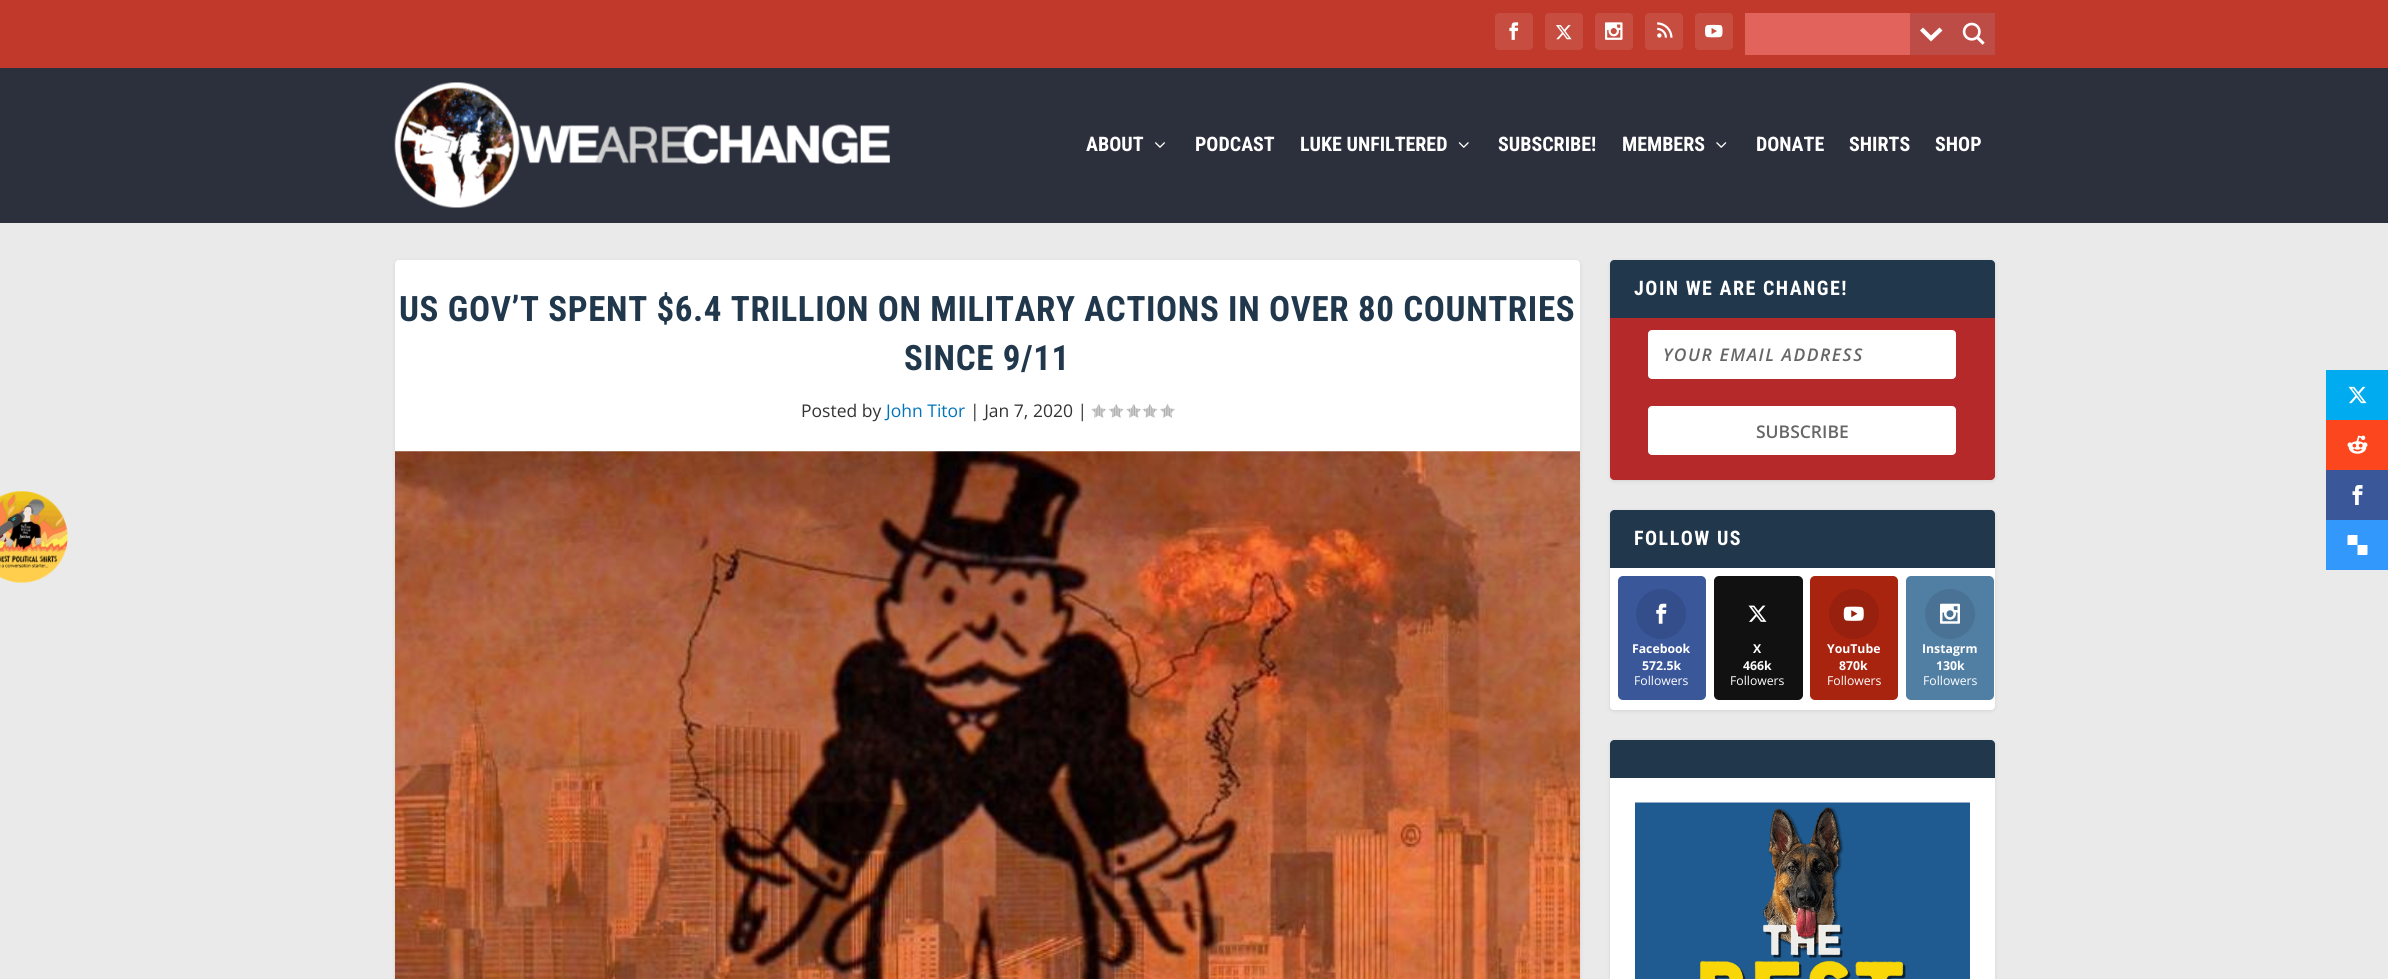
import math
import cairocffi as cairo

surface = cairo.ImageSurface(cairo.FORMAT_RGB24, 2388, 979)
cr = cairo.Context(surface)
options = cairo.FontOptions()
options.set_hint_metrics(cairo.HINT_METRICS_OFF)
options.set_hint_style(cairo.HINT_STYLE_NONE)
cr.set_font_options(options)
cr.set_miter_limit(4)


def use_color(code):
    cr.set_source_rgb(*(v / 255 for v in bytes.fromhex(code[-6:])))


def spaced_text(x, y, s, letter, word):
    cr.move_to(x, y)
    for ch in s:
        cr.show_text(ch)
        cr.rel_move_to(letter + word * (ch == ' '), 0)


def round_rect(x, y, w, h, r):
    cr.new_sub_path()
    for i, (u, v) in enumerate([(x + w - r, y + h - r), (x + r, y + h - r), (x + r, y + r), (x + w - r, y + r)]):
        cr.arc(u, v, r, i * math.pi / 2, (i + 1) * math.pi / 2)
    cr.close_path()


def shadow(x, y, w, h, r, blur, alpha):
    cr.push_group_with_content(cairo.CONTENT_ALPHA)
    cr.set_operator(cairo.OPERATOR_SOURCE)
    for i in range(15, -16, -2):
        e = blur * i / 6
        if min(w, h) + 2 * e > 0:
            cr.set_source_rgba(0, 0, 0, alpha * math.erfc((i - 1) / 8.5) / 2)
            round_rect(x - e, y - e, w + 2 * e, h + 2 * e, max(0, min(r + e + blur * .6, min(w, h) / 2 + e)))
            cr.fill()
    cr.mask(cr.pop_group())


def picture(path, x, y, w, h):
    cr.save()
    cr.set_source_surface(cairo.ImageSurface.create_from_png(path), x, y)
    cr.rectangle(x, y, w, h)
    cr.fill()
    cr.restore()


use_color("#eaeaea")
cr.paint()
picture("img1.png", 0, 491, 68, 92)
use_color("#c0392b")
cr.rectangle(0, 0, 2388, 68)
cr.fill()
use_color("#c64d40")
round_rect(1495, 13, 38, 37, 4)
cr.fill()
picture("img2.png", 1509, 22, 10, 18)
round_rect(1545, 13, 38, 37, 4)
cr.fill()
picture("img3.png", 1556, 25, 16, 15)
round_rect(1595, 13, 38, 37, 4)
cr.fill()
picture("img4.png", 1605, 22, 18, 18)
round_rect(1645, 13, 38, 37, 4)
cr.fill()
picture("img5.png", 1657, 22, 16, 16)
round_rect(1695, 13, 38, 37, 4)
cr.fill()
picture("img6.png", 1705, 24, 18, 14)
use_color("#e1635c")
cr.rectangle(1745, 13, 165, 42)
cr.fill()
use_color("#be4c46")
cr.rectangle(1910, 13, 85, 42)
cr.fill()
use_color("#ffffff")
cr.new_path()
cr.move_to(1939.5, 27.5)
cr.line_to(1942.5, 30.5)
cr.line_to(1931, 41.5)
cr.line_to(1920, 30.5)
cr.line_to(1923, 27.5)
cr.line_to(1931, 35.5)
cr.close_path()
cr.fill()
picture("img7.png", 1962, 22, 23, 23)
use_color("#2c2f3c")
cr.rectangle(0, 68, 2388, 155)
cr.fill()
picture("img8.png", 394, 82, 496, 126)
cr.select_font_face("Roboto Condensed", cairo.FONT_SLANT_NORMAL, cairo.FONT_WEIGHT_BOLD)
cr.set_font_size(20)
use_color("#ffffff")
cr.move_to(1086, 151)
cr.show_text("ABOUT")
picture("img9.png", 1155, 142, 10, 6)
cr.move_to(1195, 151)
cr.show_text("PODCAST")
cr.move_to(1300, 151)
cr.show_text("LUKE UNFILTERED")
picture("img10.png", 1458, 142, 11, 6)
cr.move_to(1498, 151)
cr.show_text("SUBSCRIBE!")
cr.move_to(1622, 151)
cr.show_text("MEMBERS")
picture("img11.png", 1716, 142, 11, 6)
cr.move_to(1756, 151)
cr.show_text("DONATE")
cr.move_to(1849, 151)
cr.show_text("SHIRTS")
cr.move_to(1935, 151)
cr.show_text("SHOP")
use_color("#000000")
shadow(395, 261, 1185, 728, 4, 2, 0.1)
use_color("#ffffff")
round_rect(395, 260, 1185, 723, 4)
cr.fill()
cr.set_font_size(35)
use_color("#20374c")
spaced_text(399, 321, "US GOV’T SPENT $6.4 TRILLION ON MILITARY ACTIONS IN OVER 80 COUNTRIES", 0.62, 0)
spaced_text(904, 370, "SINCE 9/11", 0.62, 0)
cr.select_font_face("Open Sans")
cr.set_font_size(17.5)
use_color("#333333")
cr.move_to(801, 417)
cr.show_text("Posted by")
use_color("#0175bb")
cr.move_to(886, 417)
cr.show_text("John Titor")
use_color("#333333")
cr.move_to(970, 417)
cr.show_text("| Jan 7, 2020 |")
picture("img12.png", 1091, 404, 15, 14)
picture("img13.png", 1109, 404, 15, 14)
picture("img12.png", 1126, 404, 15, 14)
picture("img14.png", 1142, 404, 16, 14)
picture("img15.png", 1160, 404, 15, 14)
picture("img16.png", 395, 451, 1185, 528)
use_color("#000000")
shadow(1610, 261, 385, 220, 4, 2, 0.1)
use_color("#20374c")
cr.new_path()
cr.move_to(1614, 260)
cr.line_to(1991, 260)
cr.curve_to(1993, 260, 1995, 262, 1995, 264)
cr.line_to(1995, 318)
cr.line_to(1610, 318)
cr.line_to(1610, 264)
cr.curve_to(1610, 262, 1612, 260, 1614, 260)
cr.close_path()
cr.fill()
cr.select_font_face("Roboto Condensed", cairo.FONT_SLANT_NORMAL, cairo.FONT_WEIGHT_BOLD)
cr.set_font_size(20)
use_color("#ffffff")
spaced_text(1634, 295, "JOIN WE ARE CHANGE!", 1.5, 0)
use_color("#b5292a")
cr.new_path()
cr.move_to(1610, 318)
cr.line_to(1995, 318)
cr.line_to(1995, 476)
cr.curve_to(1995, 478, 1993, 480, 1991, 480)
cr.line_to(1614, 480)
cr.curve_to(1612, 480, 1610, 478, 1610, 476)
cr.close_path()
cr.fill()
use_color("#ffffff")
round_rect(1648, 330, 308, 49, 4)
cr.fill()
cr.select_font_face("Open Sans SemiBold", cairo.FONT_SLANT_ITALIC)
cr.set_font_size(17.5)
use_color("#666666")
spaced_text(1663, 361, "YOUR EMAIL ADDRESS", 1.5, 0)
use_color("#ffffff")
round_rect(1648, 406, 308, 49, 4)
cr.fill()
cr.select_font_face("Open Sans SemiBold")
use_color("#666666")
cr.move_to(1756, 438)
cr.show_text("SUBSCRIBE")
use_color("#000000")
shadow(1610, 511, 385, 200, 4, 2, 0.1)
use_color("#ffffff")
round_rect(1610, 510, 385, 200, 4)
cr.fill()
use_color("#20374c")
cr.new_path()
cr.move_to(1614, 510)
cr.line_to(1991, 510)
cr.curve_to(1993, 510, 1995, 512, 1995, 514)
cr.line_to(1995, 568)
cr.line_to(1610, 568)
cr.line_to(1610, 514)
cr.curve_to(1610, 512, 1612, 510, 1614, 510)
cr.close_path()
cr.fill()
cr.select_font_face("Roboto Condensed", cairo.FONT_SLANT_NORMAL, cairo.FONT_WEIGHT_BOLD)
cr.set_font_size(20)
use_color("#ffffff")
spaced_text(1634, 545, "FOLLOW US", 1.5, 0)
use_color("#3a579a")
round_rect(1618, 576, 88, 124, 5)
cr.fill()
use_color("#344e8b")
cr.arc(1661, 614, 25, 0, 2 * math.pi)
cr.fill()
picture("img17.png", 1656, 603, 11, 21)
cr.select_font_face("Open Sans", cairo.FONT_SLANT_NORMAL, cairo.FONT_WEIGHT_BOLD)
cr.set_font_size(12.25)
use_color("#ffffff")
cr.move_to(1632, 653)
cr.show_text("Facebook")
cr.move_to(1642, 670)
cr.show_text("572.5k")
cr.select_font_face("Open Sans")
cr.move_to(1634, 685)
cr.show_text("Followers")
use_color("#111111")
round_rect(1714, 576, 89, 124, 5)
cr.fill()
picture("img18.png", 1748, 605, 19, 17)
cr.select_font_face("Open Sans", cairo.FONT_SLANT_NORMAL, cairo.FONT_WEIGHT_BOLD)
use_color("#ffffff")
cr.move_to(1753, 653)
cr.show_text("X")
cr.move_to(1743, 670)
cr.show_text("466k")
cr.select_font_face("Open Sans")
cr.move_to(1730, 685)
cr.show_text("Followers")
use_color("#a8240f")
round_rect(1810, 576, 88, 124, 5)
cr.fill()
use_color("#97200e")
cr.arc(1854, 614, 25, 0, 2 * math.pi)
cr.fill()
picture("img19.png", 1843, 606, 21, 15)
cr.select_font_face("Open Sans", cairo.FONT_SLANT_NORMAL, cairo.FONT_WEIGHT_BOLD)
use_color("#ffffff")
cr.move_to(1827, 653)
cr.show_text("YouTube")
cr.move_to(1839, 670)
cr.show_text("870k")
cr.select_font_face("Open Sans")
cr.move_to(1827, 685)
cr.show_text("Followers")
use_color("#517fa4")
round_rect(1906, 576, 88, 124, 5)
cr.fill()
use_color("#497294")
cr.arc(1950, 614, 25, 0, 2 * math.pi)
cr.fill()
picture("img20.png", 1940, 603, 20, 21)
cr.select_font_face("Open Sans", cairo.FONT_SLANT_NORMAL, cairo.FONT_WEIGHT_BOLD)
use_color("#ffffff")
cr.move_to(1922, 653)
cr.show_text("Instagrm")
cr.move_to(1936, 670)
cr.show_text("130k")
cr.select_font_face("Open Sans")
cr.move_to(1923, 685)
cr.show_text("Followers")
use_color("#000000")
shadow(1610, 741, 385, 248, 4, 2, 0.1)
use_color("#ffffff")
round_rect(1610, 740, 385, 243, 4)
cr.fill()
use_color("#20374c")
cr.new_path()
cr.move_to(1614, 740)
cr.line_to(1991, 740)
cr.curve_to(1993, 740, 1995, 742, 1995, 744)
cr.line_to(1995, 778)
cr.line_to(1610, 778)
cr.line_to(1610, 744)
cr.curve_to(1610, 742, 1612, 740, 1614, 740)
cr.close_path()
cr.fill()
picture("img21.png", 1635, 802, 335, 177)
use_color("#00abf0")
cr.rectangle(2326, 370, 62, 50)
cr.fill()
picture("img22.png", 2348, 386, 19, 18)
use_color("#fc461e")
cr.rectangle(2326, 420, 62, 50)
cr.fill()
picture("img23.png", 2347, 435, 21, 19)
use_color("#3a579a")
cr.rectangle(2326, 470, 62, 50)
cr.fill()
picture("img24.png", 2352, 485, 11, 20)
use_color("#3398fc")
cr.rectangle(2326, 520, 62, 50)
cr.fill()
picture("img25.png", 2347, 535, 21, 20)
surface.write_to_png("result.png")
